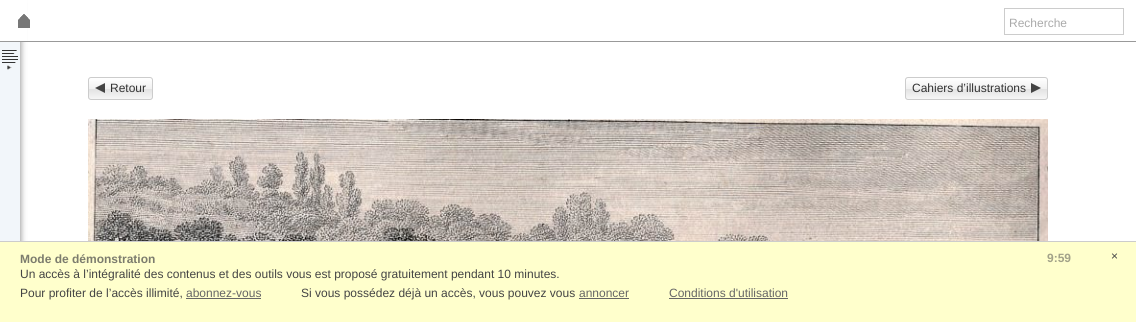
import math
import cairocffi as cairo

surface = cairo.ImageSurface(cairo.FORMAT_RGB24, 1136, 322)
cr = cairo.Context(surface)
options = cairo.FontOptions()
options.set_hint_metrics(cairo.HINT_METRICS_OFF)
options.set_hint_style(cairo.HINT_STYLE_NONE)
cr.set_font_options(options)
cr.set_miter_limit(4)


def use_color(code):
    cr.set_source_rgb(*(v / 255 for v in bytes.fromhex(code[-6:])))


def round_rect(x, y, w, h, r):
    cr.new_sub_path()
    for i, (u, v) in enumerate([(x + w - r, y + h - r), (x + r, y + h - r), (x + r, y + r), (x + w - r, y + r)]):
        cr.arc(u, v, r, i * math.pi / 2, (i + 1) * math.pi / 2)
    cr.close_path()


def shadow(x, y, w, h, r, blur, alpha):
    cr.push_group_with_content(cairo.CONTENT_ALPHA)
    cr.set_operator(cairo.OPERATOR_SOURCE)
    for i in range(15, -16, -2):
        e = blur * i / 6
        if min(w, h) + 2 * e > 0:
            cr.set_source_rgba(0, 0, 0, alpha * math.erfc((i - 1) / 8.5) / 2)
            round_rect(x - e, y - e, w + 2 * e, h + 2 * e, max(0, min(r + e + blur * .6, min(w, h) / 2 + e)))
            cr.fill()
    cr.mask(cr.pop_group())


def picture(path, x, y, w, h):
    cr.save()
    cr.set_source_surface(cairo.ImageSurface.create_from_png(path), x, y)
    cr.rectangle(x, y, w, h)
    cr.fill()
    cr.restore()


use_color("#ffffff")
cr.paint()
use_color("#999999")
shadow(-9, 1, 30, 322, 0, 3, 1)
use_color("#ffffff")
cr.rectangle(0, 0, 27, 41)
cr.fill()
use_color("#999999")
cr.rectangle(15, 41, 1121, 1)
cr.fill()
picture("img1.png", 18, 14, 12, 14)
cr.rectangle(1004.5, 8.5, 119, 26)
use_color("#cccccc")
cr.set_line_width(1)
cr.stroke()
cr.select_font_face("Liberation Sans")
cr.set_font_size(12)
use_color("#aaaaaa")
cr.move_to(1009, 27)
cr.show_text("Recherche")
use_color("#f2f6fa")
cr.rectangle(0, 42, 20, 199)
cr.fill()
picture("img2.png", 2, 50, 16, 20)
cr.save()
round_rect(88, 77, 65, 23, 3)
cr.clip()
gradient = cairo.LinearGradient(121, 78, 121, 99)
gradient.add_color_stop_rgba(0, 1, 1, 1, 1)
gradient.add_color_stop_rgba(0.5, 0.945, 0.945, 0.945, 1)
gradient.add_color_stop_rgba(0.51, 0.882, 0.882, 0.882, 1)
gradient.add_color_stop_rgba(1, 0.965, 0.965, 0.965, 1)
cr.set_source(gradient)
cr.rectangle(88, 78, 65, 21)
cr.fill()
cr.restore()
round_rect(88.5, 77.5, 64, 22, 2.5)
use_color("#cccccc")
cr.stroke()
use_color("#444444")
cr.new_path()
cr.move_to(105, 83)
cr.line_to(105, 93)
cr.line_to(95, 88)
cr.close_path()
cr.fill()
use_color("#333333")
cr.move_to(110, 92)
cr.show_text("Retour")
cr.save()
round_rect(905, 77, 143, 23, 3)
cr.clip()
gradient = cairo.LinearGradient(977, 78, 977, 99)
gradient.add_color_stop_rgba(0, 1, 1, 1, 1)
gradient.add_color_stop_rgba(0.5, 0.945, 0.945, 0.945, 1)
gradient.add_color_stop_rgba(0.51, 0.882, 0.882, 0.882, 1)
gradient.add_color_stop_rgba(1, 0.965, 0.965, 0.965, 1)
cr.set_source(gradient)
cr.rectangle(905, 78, 143, 21)
cr.fill()
cr.restore()
round_rect(905.5, 77.5, 142, 22, 2.5)
use_color("#cccccc")
cr.stroke()
use_color("#333333")
cr.move_to(912, 92)
cr.show_text("Cahiers d’illustrations")
use_color("#444444")
cr.new_path()
cr.move_to(1031, 93)
cr.line_to(1031, 83)
cr.line_to(1041, 88)
cr.close_path()
cr.fill()
picture("img3.png", 88, 119, 960, 122)
use_color("#ffffcc")
cr.rectangle(0, 242, 1136, 80)
cr.fill()
use_color("#cccccc")
cr.rectangle(0, 241, 1136, 1)
cr.fill()
cr.select_font_face("Liberation Sans", cairo.FONT_SLANT_NORMAL, cairo.FONT_WEIGHT_BOLD)
use_color("#7c7c6d")
cr.move_to(20, 263)
cr.show_text("Mode de démonstration")
use_color("#a3a389")
cr.move_to(1047, 262)
cr.show_text("9:59")
cr.select_font_face("Liberation Sans")
use_color("#444444")
cr.move_to(1111, 260)
cr.show_text("×")
cr.move_to(20, 278)
cr.show_text("Un accès à l’intégralité des contenus et des outils vous est proposé gratuitement pendant 10 minutes.")
cr.move_to(20, 297)
cr.show_text("Pour profiter de l’accès illimité,")
use_color("#666666")
cr.move_to(186, 297)
cr.show_text("abonnez-vous")
cr.rectangle(186, 298, 75, 1)
cr.fill()
use_color("#444444")
cr.move_to(301, 297)
cr.show_text("Si vous possédez déjà un accès, vous pouvez vous")
use_color("#666666")
cr.move_to(579, 297)
cr.show_text("annoncer")
cr.rectangle(579, 298, 50, 1)
cr.fill()
cr.move_to(669, 297)
cr.show_text("Conditions d'utilisation")
cr.rectangle(669, 298, 119, 1)
cr.fill()
surface.write_to_png("result.png")
